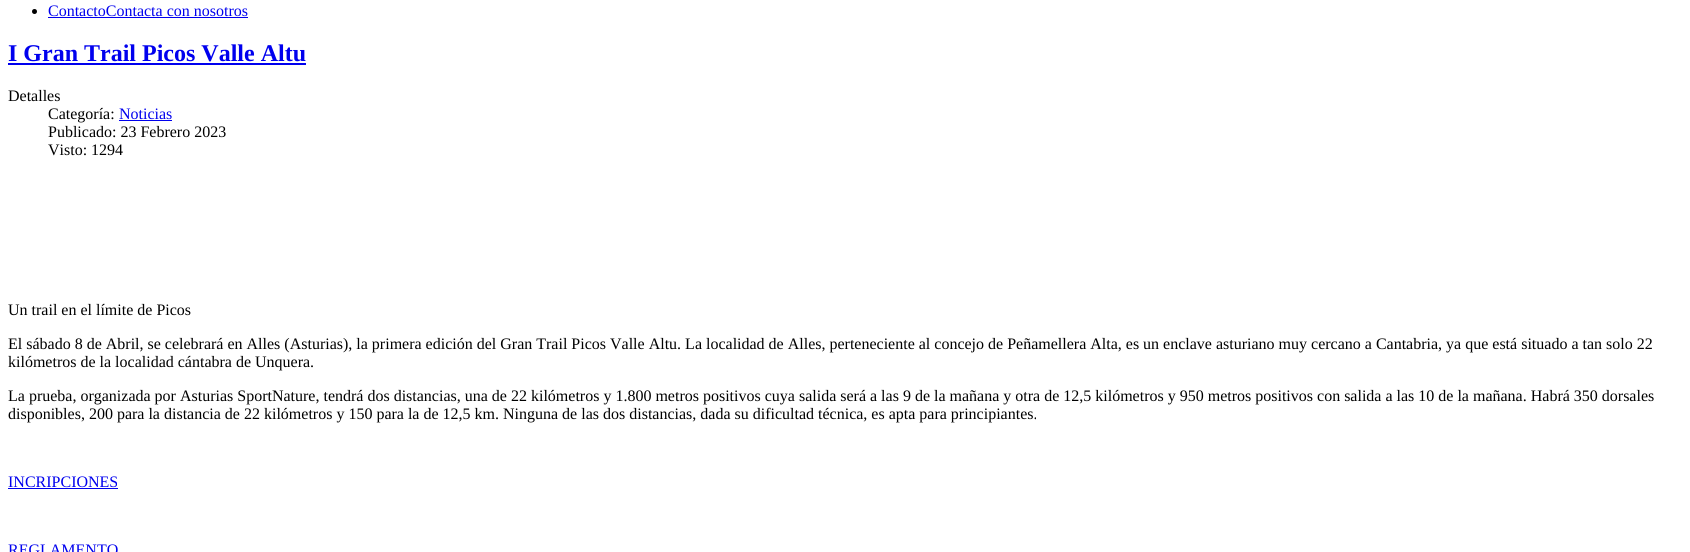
import math
import cairocffi as cairo

surface = cairo.ImageSurface(cairo.FORMAT_RGB24, 1690, 552)
cr = cairo.Context(surface)
options = cairo.FontOptions()
options.set_hint_metrics(cairo.HINT_METRICS_OFF)
options.set_hint_style(cairo.HINT_STYLE_NONE)
cr.set_font_options(options)
cr.set_miter_limit(4)


def use_color(code):
    cr.set_source_rgb(*(v / 255 for v in bytes.fromhex(code[-6:])))


use_color("#ffffff")
cr.paint()
use_color("#000000")
cr.arc(34.5, 11.5, 2.5, 0, 2 * math.pi)
cr.fill()
cr.select_font_face("Liberation Serif")
cr.set_font_size(16)
use_color("#0000ee")
cr.move_to(48, 16)
cr.show_text("ContactoContacta con nosotros")
cr.rectangle(48, 17, 200, 1)
cr.fill()
cr.select_font_face("Liberation Serif", cairo.FONT_SLANT_NORMAL, cairo.FONT_WEIGHT_BOLD)
cr.set_font_size(24)
cr.move_to(8, 61)
cr.show_text("I Gran Trail Picos Valle Altu")
cr.rectangle(8, 63, 298, 2)
cr.fill()
cr.select_font_face("Liberation Serif")
cr.set_font_size(16)
use_color("#000000")
cr.move_to(8, 101)
cr.show_text("Detalles")
cr.move_to(48, 119)
cr.show_text("Categoría:")
use_color("#0000ee")
cr.move_to(119, 119)
cr.show_text("Noticias")
cr.rectangle(119, 120, 53, 1)
cr.fill()
use_color("#000000")
cr.move_to(48, 137)
cr.show_text("Publicado: 23 Febrero 2023")
cr.move_to(48, 155)
cr.show_text("Visto: 1294")
cr.move_to(8, 315)
cr.show_text("Un trail en el límite de Picos")
cr.move_to(8, 349)
cr.show_text("El sábado 8 de Abril, se celebrará en Alles (Asturias), la primera edición del Gran Trail Picos Valle Altu. La localidad de Alles, perteneciente al concejo de Peñamellera Alta, es un enclave asturiano muy cercano a Cantabria, ya que está situado a tan solo 22")
cr.move_to(8, 367)
cr.show_text("kilómetros de la localidad cántabra de Unquera.")
cr.move_to(8, 401)
cr.show_text("La prueba, organizada por Asturias SportNature, tendrá dos distancias, una de 22 kilómetros y 1.800 metros positivos cuya salida será a las 9 de la mañana y otra de 12,5 kilómetros y 950 metros positivos con salida a las 10 de la mañana. Habrá 350 dorsales")
cr.move_to(8, 419)
cr.show_text("disponibles, 200 para la distancia de 22 kilómetros y 150 para la de 12,5 km. Ninguna de las dos distancias, dada su dificultad técnica, es apta para principiantes.")
use_color("#0000ee")
cr.move_to(8, 487)
cr.show_text("INCRIPCIONES")
cr.rectangle(8, 488, 110, 1)
cr.fill()
cr.move_to(8, 555)
cr.show_text("REGLAMENTO")
surface.write_to_png("result.png")
